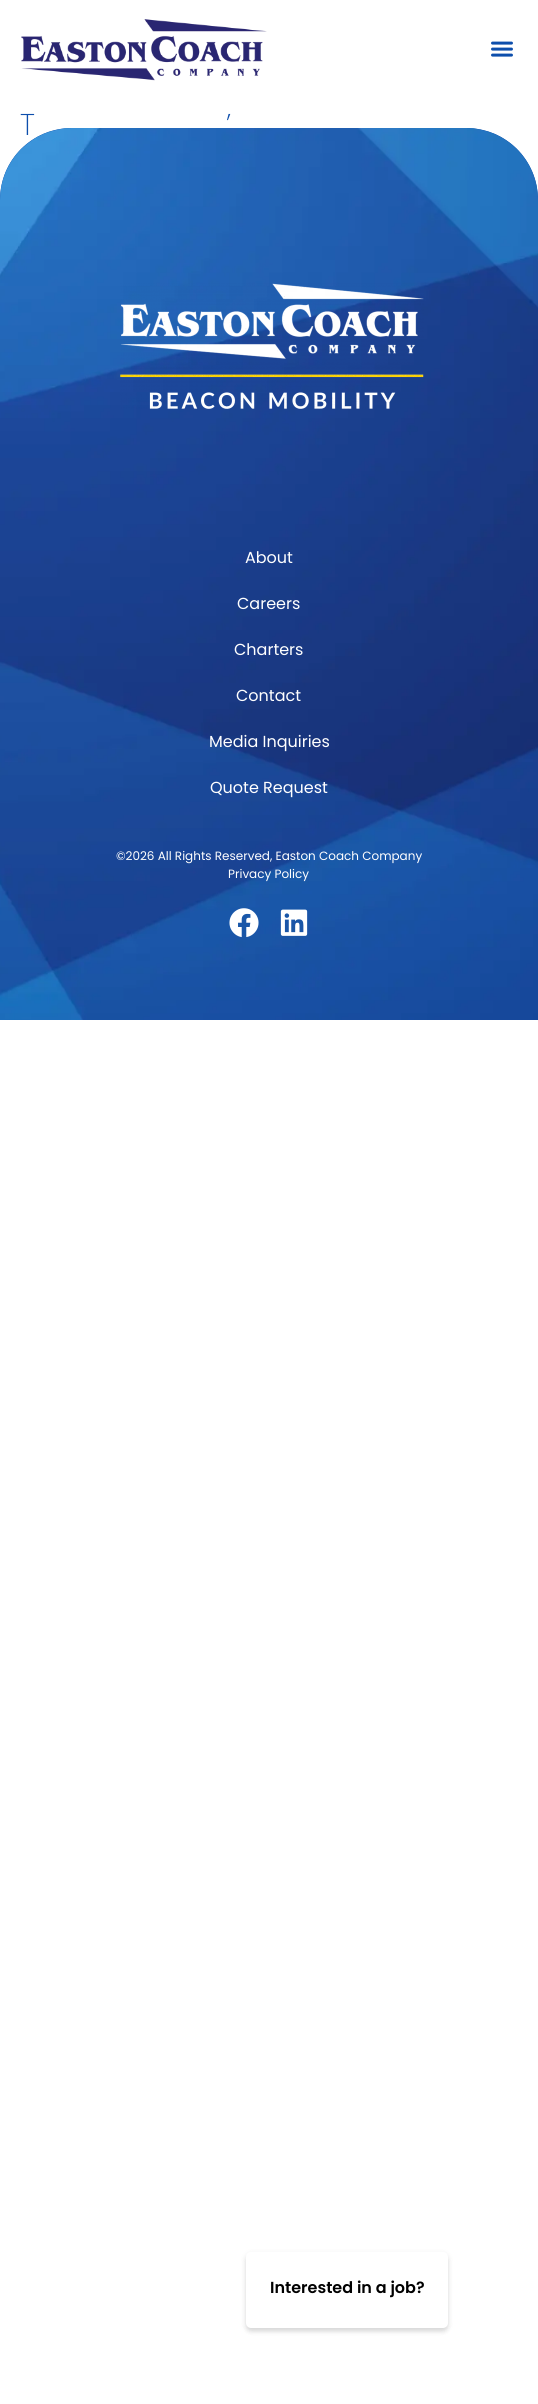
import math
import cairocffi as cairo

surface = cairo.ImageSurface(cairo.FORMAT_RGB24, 538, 2404)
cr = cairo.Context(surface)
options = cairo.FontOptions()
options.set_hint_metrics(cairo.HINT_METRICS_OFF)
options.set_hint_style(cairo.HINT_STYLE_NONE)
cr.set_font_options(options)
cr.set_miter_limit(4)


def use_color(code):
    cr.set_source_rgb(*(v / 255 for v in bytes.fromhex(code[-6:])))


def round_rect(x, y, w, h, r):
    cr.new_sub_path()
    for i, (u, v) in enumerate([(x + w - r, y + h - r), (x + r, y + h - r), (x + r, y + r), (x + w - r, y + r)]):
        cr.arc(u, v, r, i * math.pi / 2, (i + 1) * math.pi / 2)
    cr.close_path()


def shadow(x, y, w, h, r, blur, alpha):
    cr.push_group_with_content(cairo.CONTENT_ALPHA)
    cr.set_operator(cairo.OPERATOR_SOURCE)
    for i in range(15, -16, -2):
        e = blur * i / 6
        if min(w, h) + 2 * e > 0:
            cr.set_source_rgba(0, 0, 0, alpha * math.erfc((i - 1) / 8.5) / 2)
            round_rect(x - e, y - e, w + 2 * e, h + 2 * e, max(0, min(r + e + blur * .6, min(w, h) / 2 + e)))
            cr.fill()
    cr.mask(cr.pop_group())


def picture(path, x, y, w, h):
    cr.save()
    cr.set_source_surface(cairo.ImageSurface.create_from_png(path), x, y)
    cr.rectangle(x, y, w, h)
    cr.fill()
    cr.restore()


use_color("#ffffff")
cr.paint()
picture("img1.png", 21, 19, 246, 62)
picture("img2.png", 491, 41, 22, 16)
cr.select_font_face("Poppins ExtraLight")
cr.set_font_size(30)
use_color("#0d4eac")
cr.move_to(20, 135)
cr.show_text("T")
cr.move_to(226, 135)
cr.show_text("’")
cr.new_path()
cr.move_to(72, 128)
cr.line_to(466, 128)
cr.curve_to(506, 128, 538, 160, 538, 200)
cr.line_to(538, 1020)
cr.line_to(0, 1020)
cr.line_to(0, 200)
cr.curve_to(0, 160, 32, 128, 72, 128)
cr.close_path()
cr.fill()
picture("img3.png", 0, 128, 538, 892)
picture("img4.png", 120, 283, 304, 126)
cr.select_font_face("Poppins")
cr.set_font_size(16)
use_color("#ffffff")
cr.move_to(245, 563)
cr.show_text("About")
cr.move_to(237, 609)
cr.show_text("Careers")
cr.move_to(234, 655)
cr.show_text("Charters")
cr.move_to(236, 701)
cr.show_text("Contact")
cr.move_to(209, 747)
cr.show_text("Media Inquiries")
cr.move_to(210, 793)
cr.show_text("Quote Request")
cr.set_font_size(12)
cr.move_to(116, 860)
cr.show_text("©2026 All Rights Reserved, Easton Coach Company")
cr.move_to(228, 878)
cr.show_text("Privacy Policy")
picture("img5.png", 229, 908, 30, 30)
picture("img6.png", 280, 909, 28, 27)
use_color("#1e1e1f")
shadow(246, 2254, 202, 76, 5, 3, 0.1)
shadow(246, 2256, 202, 76, 5, 2, 0.1)
use_color("#ffffff")
round_rect(246, 2252, 202, 76, 5)
cr.fill()
cr.select_font_face("Poppins SemiBold")
cr.set_font_size(16)
use_color("#000000")
cr.move_to(270, 2293)
cr.show_text("Interested in a job?")
surface.write_to_png("result.png")
